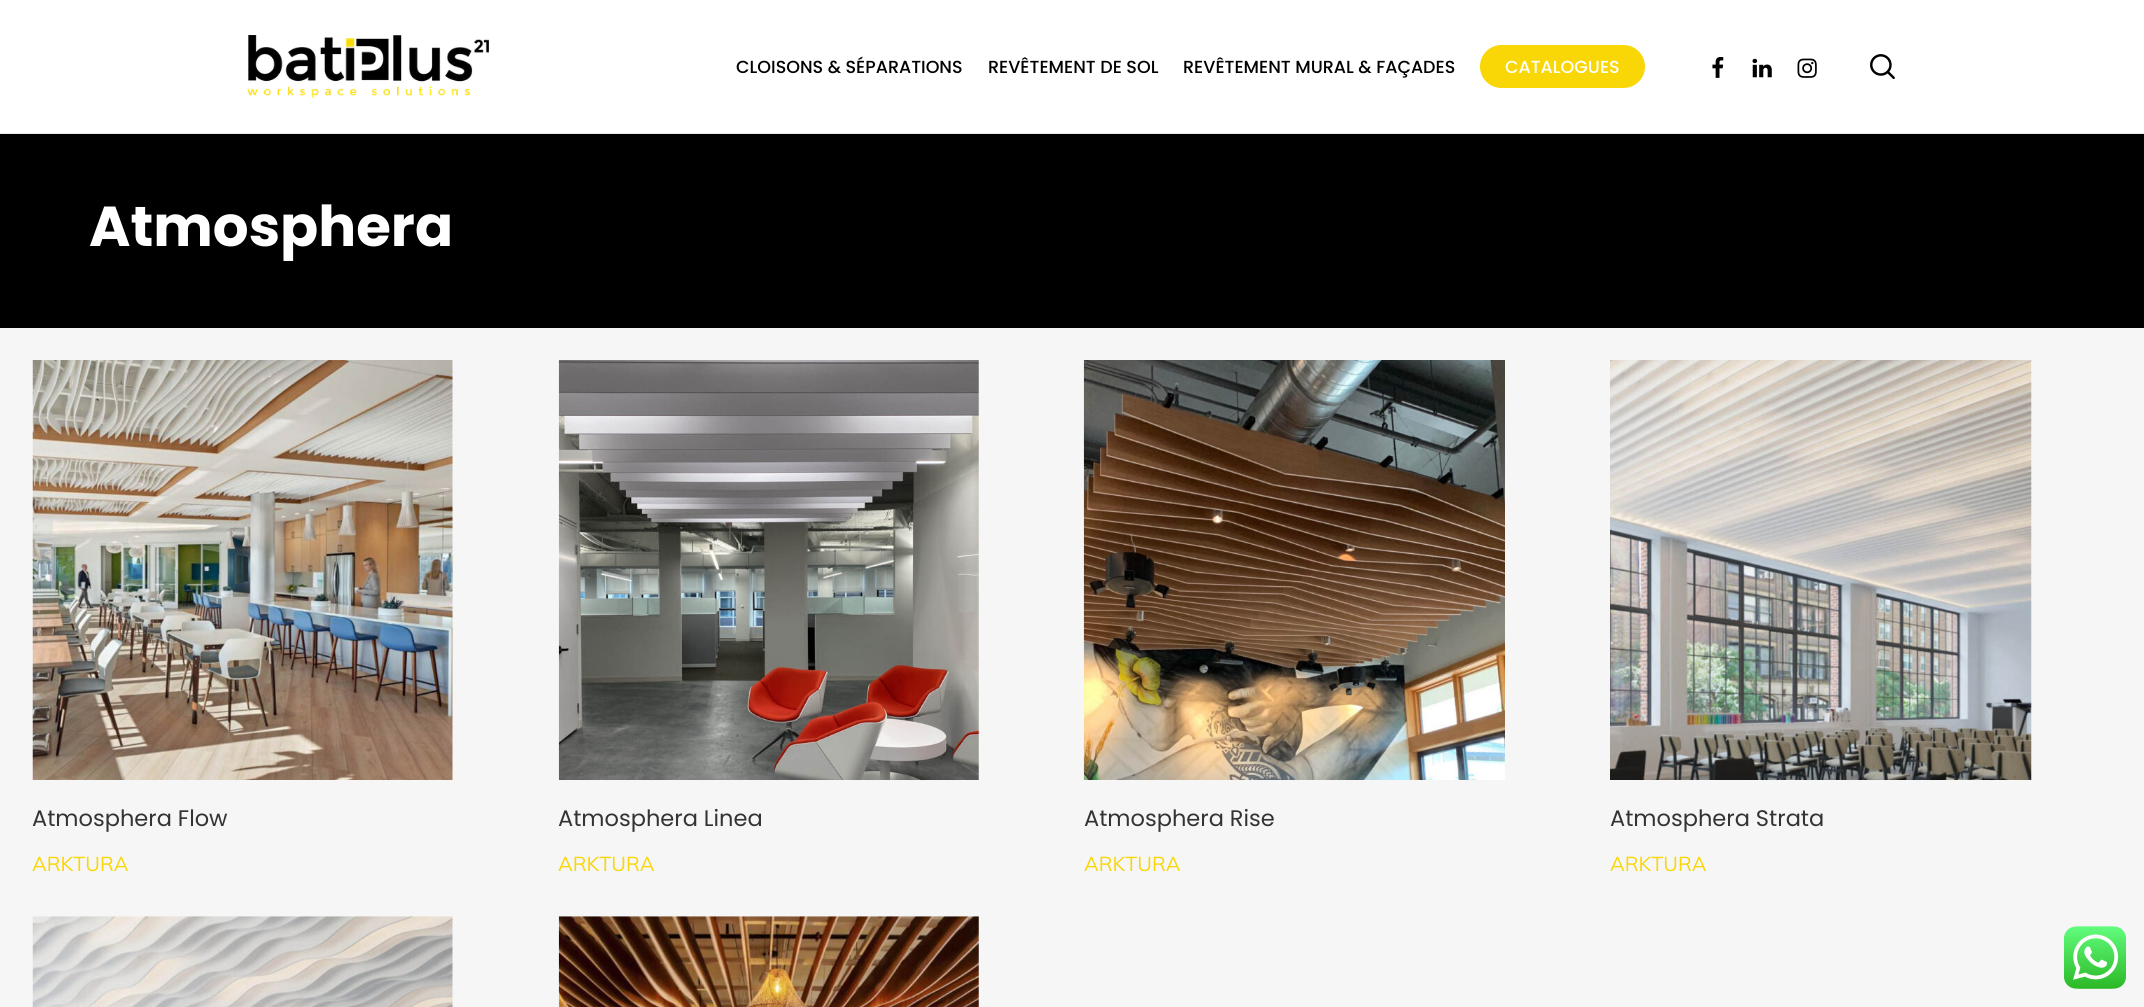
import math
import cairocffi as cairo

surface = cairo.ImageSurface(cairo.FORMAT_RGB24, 2144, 1007)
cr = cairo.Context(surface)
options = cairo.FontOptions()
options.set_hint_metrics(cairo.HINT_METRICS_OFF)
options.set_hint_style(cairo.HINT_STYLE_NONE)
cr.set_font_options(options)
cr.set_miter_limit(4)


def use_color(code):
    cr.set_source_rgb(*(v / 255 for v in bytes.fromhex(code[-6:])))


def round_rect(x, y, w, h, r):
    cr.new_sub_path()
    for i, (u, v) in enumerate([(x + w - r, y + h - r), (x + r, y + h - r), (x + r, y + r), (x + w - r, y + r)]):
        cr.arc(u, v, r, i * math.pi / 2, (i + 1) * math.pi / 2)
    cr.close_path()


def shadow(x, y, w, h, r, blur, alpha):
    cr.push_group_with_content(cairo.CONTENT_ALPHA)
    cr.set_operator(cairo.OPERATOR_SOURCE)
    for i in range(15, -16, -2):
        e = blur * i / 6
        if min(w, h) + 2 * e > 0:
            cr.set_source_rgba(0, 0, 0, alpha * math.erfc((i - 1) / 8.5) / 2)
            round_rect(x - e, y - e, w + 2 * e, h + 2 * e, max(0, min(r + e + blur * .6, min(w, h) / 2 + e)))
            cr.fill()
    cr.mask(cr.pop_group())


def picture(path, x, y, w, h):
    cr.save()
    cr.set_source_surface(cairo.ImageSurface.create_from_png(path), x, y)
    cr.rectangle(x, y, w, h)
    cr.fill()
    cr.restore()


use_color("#ffffff")
cr.paint()
use_color("#000000")
cr.rectangle(0, 134, 2144, 194)
cr.fill()
use_color("#000000")
shadow(0, 0, 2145, 133, 0, 2, 0.22)
use_color("#ffffff")
cr.rectangle(0, 0, 2144, 133)
cr.fill()
picture("img1.png", 247, 35, 242, 63)
cr.select_font_face("Poppins Medium")
cr.set_font_size(17.5)
use_color("#000000")
cr.move_to(736, 73)
cr.show_text("CLOISONS & SÉPARATIONS")
cr.move_to(988, 73)
cr.show_text("REVÊTEMENT DE SOL")
cr.move_to(1183, 73)
cr.show_text("REVÊTEMENT MURAL & FAÇADES")
use_color("#f9d606")
round_rect(1480, 45, 165, 43, 21.5)
cr.fill()
use_color("#ffffff")
cr.move_to(1505, 73)
cr.show_text("CATALOGUES")
picture("img2.png", 1712, 57, 12, 21)
picture("img3.png", 1752, 58, 20, 20)
picture("img4.png", 1797, 58, 20, 20)
picture("img5.png", 1870, 54, 25, 25)
use_color("#f6f6f6")
cr.rectangle(0, 328, 2144, 679)
cr.fill()
cr.select_font_face("Poppins", cairo.FONT_SLANT_NORMAL, cairo.FONT_WEIGHT_BOLD)
cr.set_font_size(56.25)
use_color("#ffffff")
cr.move_to(89, 246)
cr.show_text("Atmosphera")
picture("img6.png", 32, 360, 421, 420)
cr.select_font_face("Poppins")
cr.set_font_size(22.5)
use_color("#333333")
cr.move_to(32, 826)
cr.show_text("Atmosphera Flow")
cr.select_font_face("Muli")
cr.set_font_size(20)
use_color("#f9d606")
cr.move_to(32, 871)
cr.show_text("ARKTURA")
picture("img7.png", 558, 360, 421, 420)
cr.select_font_face("Poppins")
cr.set_font_size(22.5)
use_color("#333333")
cr.move_to(558, 826)
cr.show_text("Atmosphera Linea")
cr.select_font_face("Muli")
cr.set_font_size(20)
use_color("#f9d606")
cr.move_to(558, 871)
cr.show_text("ARKTURA")
picture("img8.png", 1083, 360, 422, 420)
cr.select_font_face("Poppins")
cr.set_font_size(22.5)
use_color("#333333")
cr.move_to(1084, 826)
cr.show_text("Atmosphera Rise")
cr.select_font_face("Muli")
cr.set_font_size(20)
use_color("#f9d606")
cr.move_to(1084, 871)
cr.show_text("ARKTURA")
picture("img9.png", 1610, 360, 422, 420)
cr.select_font_face("Poppins")
cr.set_font_size(22.5)
use_color("#333333")
cr.move_to(1610, 826)
cr.show_text("Atmosphera Strata")
cr.select_font_face("Muli")
cr.set_font_size(20)
use_color("#f9d606")
cr.move_to(1610, 871)
cr.show_text("ARKTURA")
picture("img10.png", 32, 916, 421, 91)
picture("img11.png", 558, 916, 421, 91)
picture("img12.png", 2064, 926, 62, 63)
surface.write_to_png("result.png")
